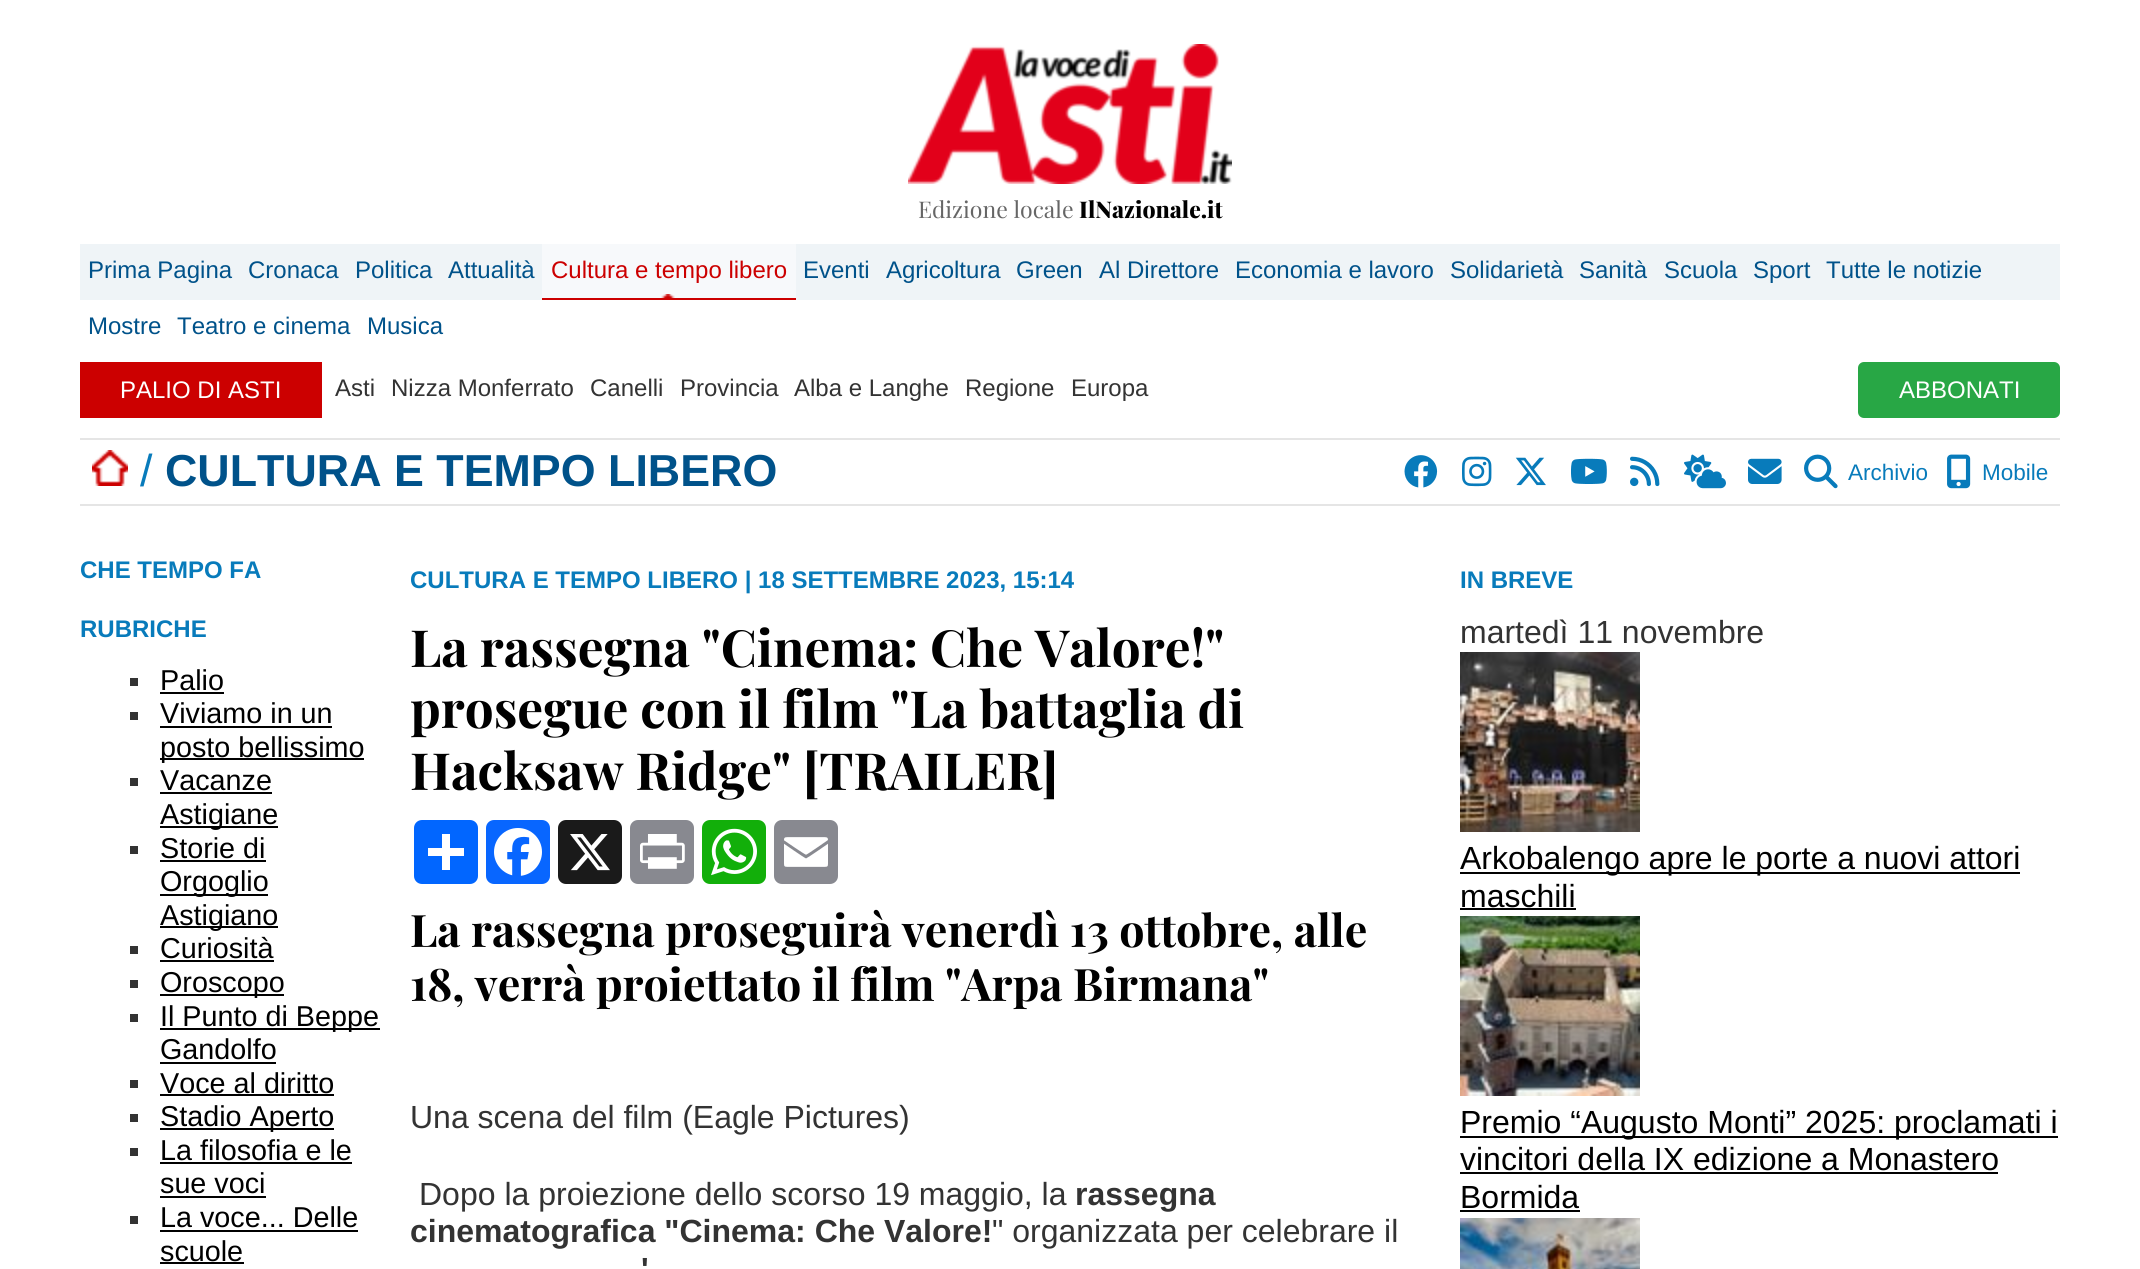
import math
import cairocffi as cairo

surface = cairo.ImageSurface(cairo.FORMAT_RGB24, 2140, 1269)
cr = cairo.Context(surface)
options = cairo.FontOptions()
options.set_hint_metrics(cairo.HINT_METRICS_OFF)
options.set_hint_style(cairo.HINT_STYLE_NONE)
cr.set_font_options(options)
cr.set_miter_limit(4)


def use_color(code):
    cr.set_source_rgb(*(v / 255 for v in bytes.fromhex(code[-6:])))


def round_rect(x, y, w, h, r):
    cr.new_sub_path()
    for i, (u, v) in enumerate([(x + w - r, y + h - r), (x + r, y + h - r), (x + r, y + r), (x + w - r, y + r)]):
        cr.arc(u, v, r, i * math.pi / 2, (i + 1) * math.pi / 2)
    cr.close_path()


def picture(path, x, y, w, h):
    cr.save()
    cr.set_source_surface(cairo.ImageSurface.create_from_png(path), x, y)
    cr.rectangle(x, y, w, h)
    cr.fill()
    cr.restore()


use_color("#ffffff")
cr.paint()
picture("img1.png", 908, 44, 324, 140)
cr.select_font_face("Playfair Display")
cr.set_font_size(23)
use_color("#666666")
cr.move_to(918, 218)
cr.show_text("Edizione locale")
cr.select_font_face("Playfair Display ExtraBold")
use_color("#000000")
cr.move_to(1079, 218)
cr.show_text("IlNazionale.it")
use_color("#eff4f7")
cr.rectangle(80, 244, 1980, 56)
cr.fill()
cr.select_font_face("Liberation Sans")
cr.set_font_size(24)
use_color("#00528a")
cr.move_to(88, 278)
cr.show_text("Prima Pagina")
cr.move_to(248, 278)
cr.show_text("Cronaca")
cr.move_to(355, 278)
cr.show_text("Politica")
cr.move_to(448, 278)
cr.show_text("Attualità")
use_color("#f7f9fb")
cr.rectangle(542, 244, 254, 54)
cr.fill()
picture("img2.png", 661, 294, 14, 4)
use_color("#cc0000")
cr.rectangle(542, 298, 254, 2)
cr.fill()
cr.move_to(551, 278)
cr.show_text("Cultura e tempo libero")
use_color("#00528a")
cr.move_to(803, 278)
cr.show_text("Eventi")
cr.move_to(886, 278)
cr.show_text("Agricoltura")
cr.move_to(1016, 278)
cr.show_text("Green")
cr.move_to(1099, 278)
cr.show_text("Al Direttore")
cr.move_to(1235, 278)
cr.show_text("Economia e lavoro")
cr.move_to(1450, 278)
cr.show_text("Solidarietà")
cr.move_to(1579, 278)
cr.show_text("Sanità")
cr.move_to(1664, 278)
cr.show_text("Scuola")
cr.move_to(1753, 278)
cr.show_text("Sport")
cr.move_to(1826, 278)
cr.show_text("Tutte le notizie")
cr.move_to(88, 334)
cr.show_text("Mostre")
cr.move_to(177, 334)
cr.show_text("Teatro e cinema")
cr.move_to(367, 334)
cr.show_text("Musica")
use_color("#cc0000")
cr.rectangle(80, 362, 242, 56)
cr.fill()
use_color("#ffffff")
cr.move_to(120, 398)
cr.show_text("PALIO DI ASTI")
use_color("#333333")
cr.move_to(335, 396)
cr.show_text("Asti")
cr.move_to(391, 396)
cr.show_text("Nizza Monferrato")
cr.move_to(590, 396)
cr.show_text("Canelli")
cr.move_to(680, 396)
cr.show_text("Provincia")
cr.move_to(794, 396)
cr.show_text("Alba e Langhe")
cr.move_to(965, 396)
cr.show_text("Regione")
cr.move_to(1071, 396)
cr.show_text("Europa")
use_color("#28a745")
round_rect(1858, 362, 202, 56, 6)
cr.fill()
use_color("#ffffff")
cr.move_to(1899, 398)
cr.show_text("ABBONATI")
use_color("#e5e5e5")
cr.rectangle(80, 438, 1980, 2)
cr.fill()
cr.rectangle(80, 504, 1980, 2)
cr.fill()
picture("img3.png", 92, 450, 36, 36)
cr.set_font_size(44.8)
use_color("#087bbb")
cr.move_to(140, 486)
cr.show_text("/")
cr.select_font_face("Liberation Sans", cairo.FONT_SLANT_NORMAL, cairo.FONT_WEIGHT_BOLD)
use_color("#00528a")
cr.move_to(165, 486)
cr.show_text("CULTURA E TEMPO LIBERO")
picture("img4.png", 1404, 455, 34, 33)
picture("img5.png", 1462, 456, 30, 31)
picture("img6.png", 1515, 457, 31, 29)
picture("img7.png", 1571, 458, 36, 26)
picture("img8.png", 1630, 456, 30, 31)
picture("img9.png", 1684, 454, 42, 35)
picture("img10.png", 1748, 458, 34, 26)
picture("img11.png", 1804, 454, 34, 35)
cr.select_font_face("Liberation Sans")
cr.set_font_size(22.5)
use_color("#087bbb")
cr.move_to(1848, 480)
cr.show_text("Archivio")
picture("img12.png", 1947, 454, 24, 35)
cr.move_to(1982, 480)
cr.show_text("Mobile")
cr.select_font_face("Liberation Sans", cairo.FONT_SLANT_NORMAL, cairo.FONT_WEIGHT_BOLD)
cr.set_font_size(24)
cr.move_to(80, 578)
cr.show_text("CHE TEMPO FA")
cr.move_to(80, 637)
cr.show_text("RUBRICHE")
use_color("#333333")
cr.rectangle(130, 678, 8, 8)
cr.fill()
cr.select_font_face("Liberation Sans")
cr.set_font_size(28.75)
use_color("#000000")
cr.move_to(160, 690)
cr.show_text("Palio")
cr.rectangle(160, 692, 64, 2)
cr.fill()
use_color("#333333")
cr.rectangle(130, 712, 8, 8)
cr.fill()
use_color("#000000")
cr.move_to(160, 723)
cr.show_text("Viviamo in un")
cr.rectangle(160, 726, 172, 2)
cr.fill()
cr.rectangle(160, 758, 204, 2)
cr.fill()
cr.move_to(160, 757)
cr.show_text("posto bellissimo")
use_color("#333333")
cr.rectangle(130, 778, 8, 8)
cr.fill()
use_color("#000000")
cr.move_to(160, 790)
cr.show_text("Vacanze")
cr.rectangle(160, 792, 112, 2)
cr.fill()
cr.rectangle(160, 826, 118, 2)
cr.fill()
cr.move_to(160, 824)
cr.show_text("Astigiane")
use_color("#333333")
cr.rectangle(130, 846, 8, 8)
cr.fill()
use_color("#000000")
cr.move_to(160, 858)
cr.show_text("Storie di")
cr.rectangle(160, 860, 106, 2)
cr.fill()
cr.rectangle(160, 894, 108, 2)
cr.fill()
cr.move_to(160, 891)
cr.show_text("Orgoglio")
cr.rectangle(160, 926, 118, 2)
cr.fill()
cr.move_to(160, 925)
cr.show_text("Astigiano")
use_color("#333333")
cr.rectangle(130, 946, 8, 8)
cr.fill()
use_color("#000000")
cr.move_to(160, 958)
cr.show_text("Curiosità")
cr.rectangle(160, 960, 114, 2)
cr.fill()
use_color("#333333")
cr.rectangle(130, 980, 8, 8)
cr.fill()
use_color("#000000")
cr.rectangle(160, 994, 124, 2)
cr.fill()
cr.move_to(160, 992)
cr.show_text("Oroscopo")
use_color("#333333")
cr.rectangle(130, 1014, 8, 8)
cr.fill()
use_color("#000000")
cr.rectangle(160, 1028, 220, 2)
cr.fill()
cr.move_to(160, 1026)
cr.show_text("Il Punto di Beppe")
cr.move_to(160, 1059)
cr.show_text("Gandolfo")
cr.rectangle(160, 1062, 116, 2)
cr.fill()
use_color("#333333")
cr.rectangle(130, 1080, 8, 8)
cr.fill()
use_color("#000000")
cr.move_to(160, 1093)
cr.show_text("Voce al diritto")
cr.rectangle(160, 1094, 174, 2)
cr.fill()
use_color("#333333")
cr.rectangle(130, 1114, 8, 8)
cr.fill()
use_color("#000000")
cr.rectangle(160, 1128, 174, 2)
cr.fill()
cr.move_to(160, 1126)
cr.show_text("Stadio Aperto")
use_color("#333333")
cr.rectangle(130, 1148, 8, 8)
cr.fill()
use_color("#000000")
cr.move_to(160, 1160)
cr.show_text("La filosofia e le")
cr.rectangle(160, 1162, 192, 2)
cr.fill()
cr.move_to(160, 1193)
cr.show_text("sue voci")
cr.rectangle(160, 1196, 106, 2)
cr.fill()
use_color("#333333")
cr.rectangle(130, 1216, 8, 8)
cr.fill()
use_color("#000000")
cr.move_to(160, 1227)
cr.show_text("La voce... Delle")
cr.rectangle(160, 1230, 198, 2)
cr.fill()
cr.move_to(160, 1261)
cr.show_text("scuole")
cr.rectangle(160, 1262, 84, 2)
cr.fill()
cr.select_font_face("Liberation Sans", cairo.FONT_SLANT_NORMAL, cairo.FONT_WEIGHT_BOLD)
cr.set_font_size(24)
use_color("#087bbb")
cr.move_to(410, 588)
cr.show_text("CULTURA E TEMPO LIBERO | 18 SETTEMBRE 2023, 15:14")
cr.select_font_face("Playfair Display", cairo.FONT_SLANT_NORMAL, cairo.FONT_WEIGHT_BOLD)
cr.set_font_size(51.25)
use_color("#000000")
cr.move_to(410, 667)
cr.show_text("La rassegna \"Cinema: Che Valore!\"")
cr.move_to(410, 728)
cr.show_text("prosegue con il film \"La battaglia di")
cr.move_to(410, 790)
cr.show_text("Hacksaw Ridge\" [TRAILER]")
use_color("#0166ff")
round_rect(414, 820, 64, 64, 8)
cr.fill()
use_color("#ffffff")
cr.rectangle(442, 834, 8, 36)
cr.fill()
cr.rectangle(428, 848, 36, 8)
cr.fill()
use_color("#0866ff")
round_rect(486, 820, 64, 64, 8)
cr.fill()
picture("img13.png", 494, 828, 48, 48)
use_color("#1a1a1a")
round_rect(558, 820, 64, 64, 8)
cr.fill()
picture("img14.png", 570, 834, 40, 37)
use_color("#888990")
round_rect(630, 820, 64, 64, 8)
cr.fill()
picture("img15.png", 640, 834, 45, 35)
use_color("#12af0a")
round_rect(702, 820, 64, 64, 8)
cr.fill()
picture("img16.png", 711, 828, 46, 48)
use_color("#888990")
round_rect(774, 820, 64, 64, 8)
cr.fill()
picture("img17.png", 784, 837, 44, 30)
cr.set_font_size(44.8)
use_color("#000000")
cr.move_to(410, 947)
cr.show_text("La rassegna proseguirà venerdì 13 ottobre, alle")
cr.move_to(410, 1001)
cr.show_text("18, verrà proiettato il film \"Arpa Birmana\"")
cr.select_font_face("Liberation Sans")
cr.set_font_size(32)
use_color("#333333")
cr.move_to(410, 1128)
cr.show_text("Una scena del film (Eagle Pictures)")
cr.move_to(419, 1205)
cr.show_text("Dopo la proiezione dello scorso 19 maggio, la")
cr.select_font_face("Liberation Sans", cairo.FONT_SLANT_NORMAL, cairo.FONT_WEIGHT_BOLD)
cr.move_to(1075, 1205)
cr.show_text("rassegna")
cr.move_to(410, 1242)
cr.show_text("cinematografica \"Cinema: Che Valore!")
cr.select_font_face("Liberation Sans")
cr.move_to(992, 1242)
cr.show_text("\" organizzata per celebrare il")
cr.select_font_face("Liberation Sans", cairo.FONT_SLANT_NORMAL, cairo.FONT_WEIGHT_BOLD)
cr.move_to(641, 1280)
cr.show_text("'")
cr.set_font_size(24)
use_color("#087bbb")
cr.move_to(1460, 588)
cr.show_text("IN BREVE")
cr.select_font_face("Liberation Sans")
cr.set_font_size(32)
use_color("#333333")
cr.move_to(1460, 643)
cr.show_text("martedì 11 novembre")
picture("img18.png", 1460, 652, 180, 180)
use_color("#000000")
cr.rectangle(1460, 872, 560, 2)
cr.fill()
cr.move_to(1460, 869)
cr.show_text("Arkobalengo apre le porte a nuovi attori")
cr.move_to(1460, 907)
cr.show_text("maschili")
cr.rectangle(1460, 908, 116, 2)
cr.fill()
picture("img19.png", 1460, 916, 180, 180)
cr.rectangle(1460, 1136, 598, 2)
cr.fill()
cr.move_to(1460, 1133)
cr.show_text("Premio “Augusto Monti” 2025: proclamati i")
cr.move_to(1460, 1170)
cr.show_text("vincitori della IX edizione a Monastero")
cr.rectangle(1460, 1172, 538, 2)
cr.fill()
cr.move_to(1460, 1208)
cr.show_text("Bormida")
cr.rectangle(1460, 1210, 120, 2)
cr.fill()
picture("img20.png", 1460, 1218, 180, 51)
surface.write_to_png("result.png")
